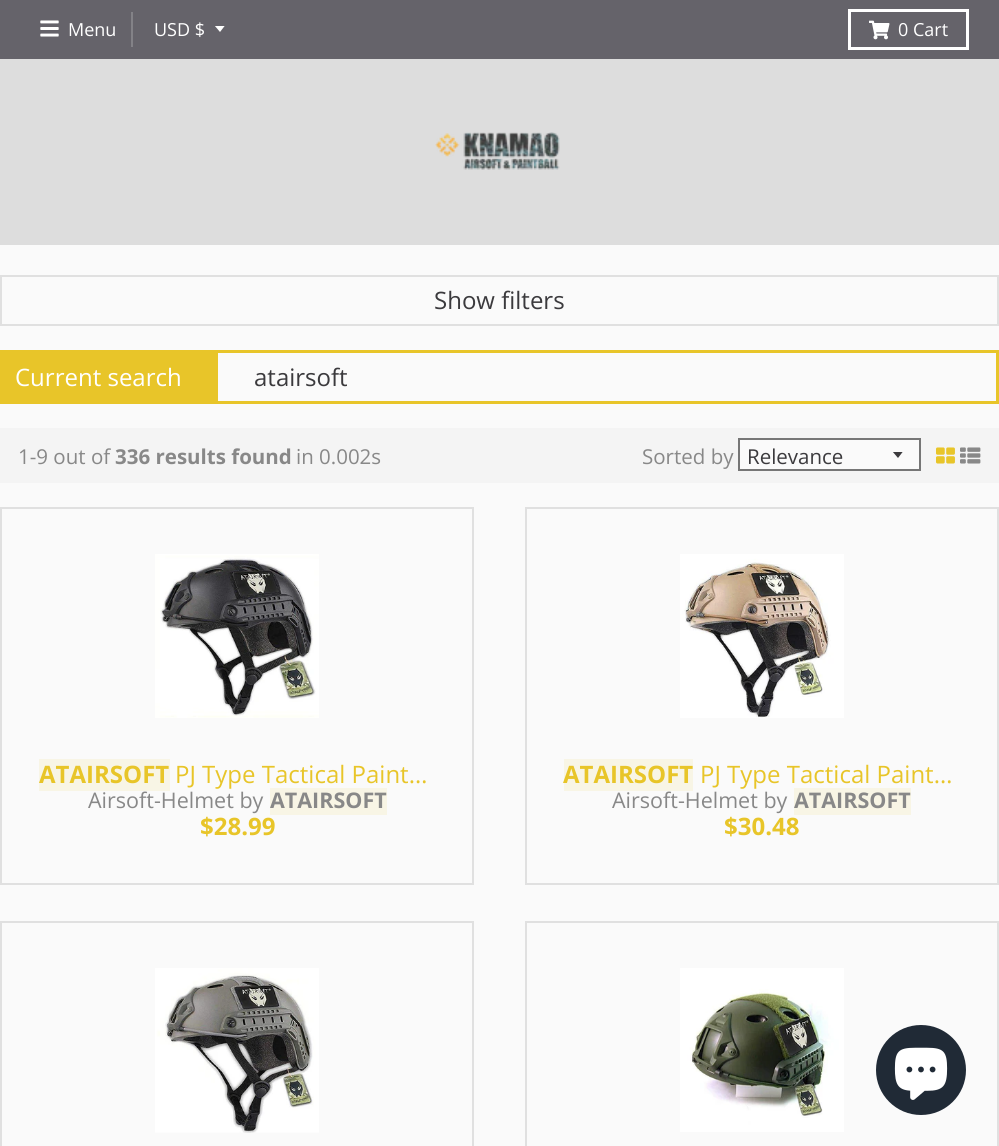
import math
import cairocffi as cairo

surface = cairo.ImageSurface(cairo.FORMAT_RGB24, 999, 1146)
cr = cairo.Context(surface)
options = cairo.FontOptions()
options.set_hint_metrics(cairo.HINT_METRICS_OFF)
options.set_hint_style(cairo.HINT_STYLE_NONE)
cr.set_font_options(options)
cr.set_miter_limit(4)


def use_color(code):
    cr.set_source_rgb(*(v / 255 for v in bytes.fromhex(code[-6:])))


def picture(path, x, y, w, h):
    cr.save()
    cr.set_source_surface(cairo.ImageSurface.create_from_png(path), x, y)
    cr.rectangle(x, y, w, h)
    cr.fill()
    cr.restore()


use_color("#fafafa")
cr.paint()
use_color("#65636a")
cr.rectangle(0, 0, 999, 59)
cr.fill()
picture("img1.png", 40, 20, 19, 17)
cr.select_font_face("Open Sans")
cr.set_font_size(18)
use_color("#ffffff")
cr.move_to(68, 36)
cr.show_text("Menu")
use_color("#838287")
cr.rectangle(131, 12, 2, 35)
cr.fill()
cr.save()
cr.rectangle(215, 26, 12, 7)
cr.clip()
use_color("#ffffff")
cr.new_path()
cr.move_to(214.5, 25.5)
cr.line_to(220, 32)
cr.line_to(225, 25.5)
cr.close_path()
cr.fill()
cr.restore()
use_color("#ffffff")
cr.move_to(154, 36)
cr.show_text("USD $")
cr.rectangle(849.5, 10.5, 118, 38)
cr.set_line_width(3)
cr.stroke()
picture("img2.png", 869, 20, 21, 20)
cr.move_to(898, 36)
cr.show_text("0 Cart")
use_color("#dddddd")
cr.rectangle(0, 59, 999, 186)
cr.fill()
picture("img3.png", 435, 132, 125, 38)
cr.rectangle(1, 276, 997, 49)
use_color("#e0e0e0")
cr.set_line_width(2)
cr.stroke()
cr.set_font_size(24)
use_color("#3b3a3d")
cr.move_to(434, 309)
cr.show_text("Show filters")
cr.rectangle(1.5, 351.5, 996, 51)
use_color("#e8c529")
cr.set_line_width(3)
cr.stroke()
cr.rectangle(3, 353, 215, 48)
cr.fill()
use_color("#ffffff")
cr.move_to(15, 386)
cr.show_text("Current search")
use_color("#3b3a3d")
cr.move_to(254, 386)
cr.show_text("atairsoft")
use_color("#f4f4f4")
cr.rectangle(0, 428, 999, 55)
cr.fill()
cr.set_font_size(20.5)
use_color("#888888")
cr.move_to(18, 464)
cr.show_text("1-9 out of")
cr.select_font_face("Open Sans", cairo.FONT_SLANT_NORMAL, cairo.FONT_WEIGHT_BOLD)
cr.move_to(115, 464)
cr.show_text("336 results found")
cr.select_font_face("Open Sans")
cr.move_to(296, 464)
cr.show_text("in 0.002s")
cr.move_to(642, 464)
cr.show_text("Sorted by")
use_color("#fafafa")
cr.rectangle(740, 440, 179, 29)
cr.fill()
cr.save()
cr.rectangle(893, 452, 12, 7)
cr.clip()
use_color("#3b3a3d")
cr.new_path()
cr.move_to(892.5, 451.5)
cr.line_to(898, 458)
cr.line_to(903, 451.5)
cr.close_path()
cr.fill()
cr.restore()
cr.rectangle(739, 439, 181, 31)
use_color("#767676")
cr.set_line_width(2)
cr.stroke()
use_color("#3b3a3d")
cr.move_to(747, 464)
cr.show_text("Relevance")
picture("img4.png", 936, 447, 19, 17)
picture("img5.png", 960, 447, 21, 17)
cr.rectangle(1, 508, 472, 376)
use_color("#e0e0e0")
cr.stroke()
picture("img6.png", 155, 554, 164, 164)
use_color("#f8f5e5")
cr.rectangle(39, 759, 131, 32)
cr.fill()
cr.select_font_face("Open Sans", cairo.FONT_SLANT_NORMAL, cairo.FONT_WEIGHT_BOLD)
cr.set_font_size(24)
use_color("#e8c529")
cr.move_to(39, 783)
cr.show_text("ATAIRSOFT")
cr.select_font_face("Open Sans")
cr.move_to(175, 783)
cr.show_text("PJ Type Tactical Paint…")
cr.set_font_size(21.5)
use_color("#888888")
cr.move_to(88, 808)
cr.show_text("Airsoft-Helmet by")
use_color("#f8f5e5")
cr.rectangle(270, 788, 117, 27)
cr.fill()
cr.select_font_face("Open Sans", cairo.FONT_SLANT_NORMAL, cairo.FONT_WEIGHT_BOLD)
use_color("#888888")
cr.move_to(270, 808)
cr.show_text("ATAIRSOFT")
cr.set_font_size(24)
use_color("#e8c529")
cr.move_to(200, 835)
cr.show_text("$28.99")
cr.rectangle(526, 508, 472, 376)
use_color("#e0e0e0")
cr.stroke()
picture("img7.png", 680, 554, 164, 164)
use_color("#f8f5e5")
cr.rectangle(564, 759, 129, 32)
cr.fill()
use_color("#e8c529")
cr.move_to(563, 783)
cr.show_text("ATAIRSOFT")
cr.select_font_face("Open Sans")
cr.move_to(700, 783)
cr.show_text("PJ Type Tactical Paint…")
cr.set_font_size(21.5)
use_color("#888888")
cr.move_to(612, 808)
cr.show_text("Airsoft-Helmet by")
use_color("#f8f5e5")
cr.rectangle(794, 788, 117, 27)
cr.fill()
cr.select_font_face("Open Sans", cairo.FONT_SLANT_NORMAL, cairo.FONT_WEIGHT_BOLD)
use_color("#888888")
cr.move_to(794, 808)
cr.show_text("ATAIRSOFT")
cr.set_font_size(24)
use_color("#e8c529")
cr.move_to(724, 835)
cr.show_text("$30.48")
cr.rectangle(1, 922, 472, 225)
use_color("#e0e0e0")
cr.stroke()
picture("img8.png", 155, 968, 164, 165)
cr.rectangle(526, 922, 472, 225)
cr.stroke()
picture("img9.png", 680, 968, 164, 164)
use_color("#202a36")
cr.arc(921, 1070, 45, 0, 2 * math.pi)
cr.fill()
picture("img10.png", 894, 1047, 54, 53)
surface.write_to_png("result.png")
